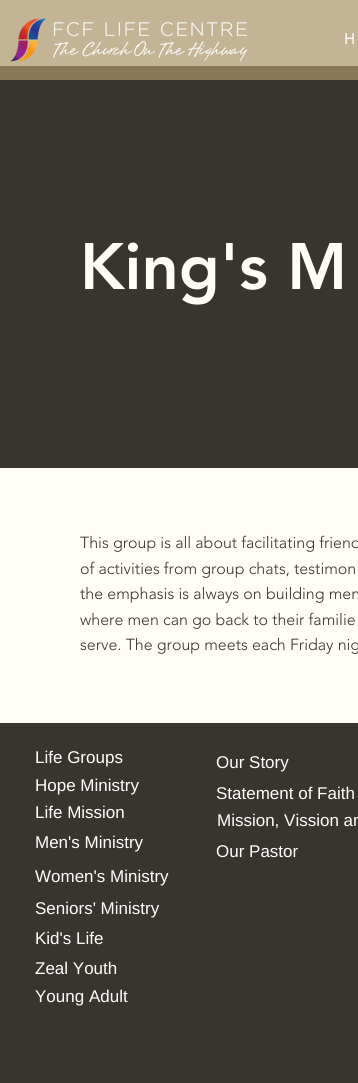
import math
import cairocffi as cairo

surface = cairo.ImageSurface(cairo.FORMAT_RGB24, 358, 1083)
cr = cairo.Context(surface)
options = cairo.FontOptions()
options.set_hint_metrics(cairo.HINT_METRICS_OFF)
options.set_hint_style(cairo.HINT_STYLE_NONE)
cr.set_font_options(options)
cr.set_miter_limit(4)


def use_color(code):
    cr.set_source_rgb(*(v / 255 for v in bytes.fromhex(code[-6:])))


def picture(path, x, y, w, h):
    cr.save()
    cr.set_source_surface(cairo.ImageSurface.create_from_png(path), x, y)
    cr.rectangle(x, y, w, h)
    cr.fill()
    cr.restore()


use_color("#fffdf8")
cr.paint()
use_color("#c4b496")
cr.rectangle(0, 0, 358, 66)
cr.fill()
picture("img1.png", 10, 18, 238, 44)
cr.select_font_face("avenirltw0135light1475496", cairo.FONT_SLANT_NORMAL, cairo.FONT_WEIGHT_BOLD)
cr.set_font_size(15)
use_color("#ffffff")
cr.move_to(344, 44)
cr.show_text("H")
use_color("#38342e")
cr.rectangle(0, 80, 358, 388)
cr.fill()
use_color("#887859")
cr.rectangle(0, 66, 358, 14)
cr.fill()
cr.select_font_face("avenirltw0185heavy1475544 Black")
cr.set_font_size(65)
use_color("#fffdf8")
cr.move_to(80, 289)
cr.show_text("King's M")
cr.select_font_face("avenirltw0135light1475496 Light")
cr.set_font_size(16)
use_color("#38342e")
cr.move_to(80, 548)
cr.show_text("This group is all about facilitating friend")
cr.move_to(80, 574)
cr.show_text("of activities from group chats, testimon")
cr.move_to(80, 599)
cr.show_text("the emphasis is always on building men")
cr.move_to(80, 625)
cr.show_text("where men can go back to their familie")
cr.move_to(80, 650)
cr.show_text("serve. The group meets each Friday nig")
cr.rectangle(0, 723, 358, 360)
cr.fill()
cr.select_font_face("Liberation Sans")
cr.set_font_size(17)
use_color("#ffffff")
cr.move_to(35, 763)
cr.show_text("Life Groups")
cr.move_to(216, 768)
cr.show_text("Our Story")
cr.move_to(35, 791)
cr.show_text("Hope Ministry")
cr.move_to(216, 799)
cr.show_text("Statement of Faith")
cr.move_to(35, 818)
cr.show_text("Life Mission")
cr.move_to(217, 826)
cr.show_text("Mission, Vission an")
cr.move_to(216, 857)
cr.show_text("Our Pastor")
cr.move_to(35, 848)
cr.show_text("Men's Ministry")
cr.move_to(35, 882)
cr.show_text("Women's Ministry")
cr.move_to(35, 914)
cr.show_text("Seniors' Ministry")
cr.move_to(35, 944)
cr.show_text("Kid's Life")
cr.move_to(35, 974)
cr.show_text("Zeal Youth")
cr.move_to(35, 1002)
cr.show_text("Young Adult")
surface.write_to_png("result.png")
